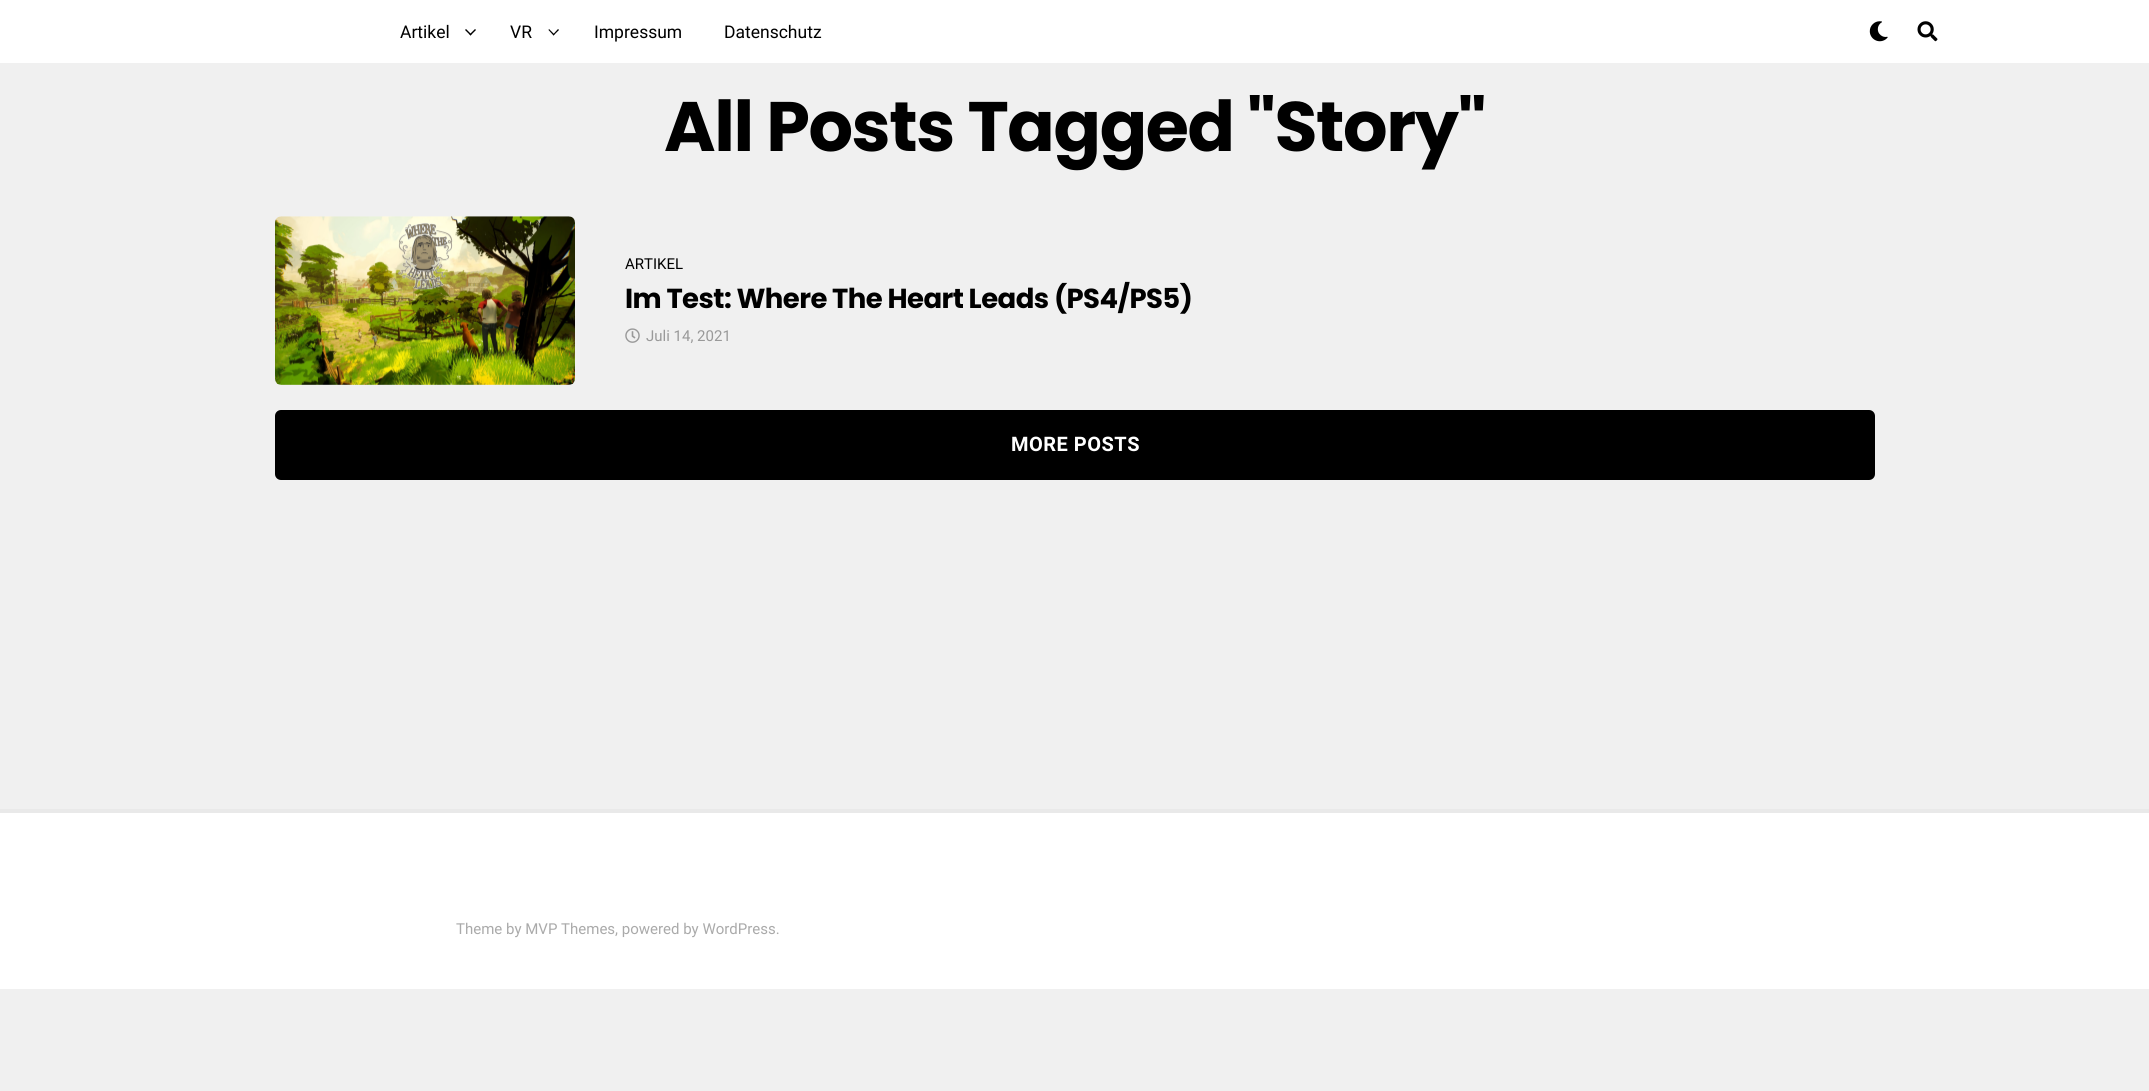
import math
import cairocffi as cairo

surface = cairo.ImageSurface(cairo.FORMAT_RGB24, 2149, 1091)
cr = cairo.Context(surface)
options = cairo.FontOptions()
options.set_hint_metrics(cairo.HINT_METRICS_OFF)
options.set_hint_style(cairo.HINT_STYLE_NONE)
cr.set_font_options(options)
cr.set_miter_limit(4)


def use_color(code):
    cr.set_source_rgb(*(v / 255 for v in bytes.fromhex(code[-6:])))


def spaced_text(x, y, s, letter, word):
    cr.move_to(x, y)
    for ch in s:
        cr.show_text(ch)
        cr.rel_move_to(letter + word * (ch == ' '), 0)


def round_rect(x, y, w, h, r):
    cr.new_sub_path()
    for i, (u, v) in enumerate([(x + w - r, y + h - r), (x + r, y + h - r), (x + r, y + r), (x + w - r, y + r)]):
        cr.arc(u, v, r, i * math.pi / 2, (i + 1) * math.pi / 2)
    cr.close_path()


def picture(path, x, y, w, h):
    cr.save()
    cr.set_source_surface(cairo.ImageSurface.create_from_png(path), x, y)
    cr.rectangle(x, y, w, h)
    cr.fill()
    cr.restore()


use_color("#f0f0f0")
cr.paint()
use_color("#ffffff")
cr.rectangle(0, 0, 2149, 63)
cr.fill()
cr.select_font_face("Roboto")
cr.set_font_size(17.5)
use_color("#000000")
cr.move_to(400, 38)
cr.show_text("Artikel")
cr.new_path()
cr.move_to(475, 29)
cr.line_to(476, 30)
cr.line_to(470.5, 35.5)
cr.line_to(469.5, 34.5)
cr.close_path()
cr.fill()
cr.new_path()
cr.move_to(466, 29)
cr.line_to(471.5, 34.5)
cr.line_to(470.5, 35.5)
cr.line_to(465, 30)
cr.close_path()
cr.fill()
cr.move_to(510, 38)
cr.show_text("VR")
cr.new_path()
cr.move_to(558, 29)
cr.line_to(559, 30)
cr.line_to(553.5, 35.5)
cr.line_to(553, 34.5)
cr.close_path()
cr.fill()
cr.new_path()
cr.move_to(549, 29)
cr.line_to(554.5, 34.5)
cr.line_to(553.5, 35.5)
cr.line_to(548.5, 30)
cr.close_path()
cr.fill()
cr.move_to(594, 38)
cr.show_text("Impressum")
cr.move_to(724, 38)
cr.show_text("Datenschutz")
picture("img1.png", 1869, 21, 19, 21)
picture("img2.png", 1917, 21, 21, 21)
cr.select_font_face("Poppins", cairo.FONT_SLANT_NORMAL, cairo.FONT_WEIGHT_BOLD)
cr.set_font_size(70)
spaced_text(664, 151, "All Posts Tagged \"Story\"", -1.4, 0)
picture("img3.png", 275, 216, 300, 169)
cr.select_font_face("Roboto")
cr.set_font_size(15)
cr.move_to(625, 269)
cr.show_text("ARTIKEL")
cr.select_font_face("Poppins", cairo.FONT_SLANT_NORMAL, cairo.FONT_WEIGHT_BOLD)
cr.set_font_size(27.5)
spaced_text(625, 308, "Im Test: Where The Heart Leads (PS4/PS5)", -0.55, 0)
picture("img4.png", 625, 328, 15, 15)
cr.select_font_face("Roboto")
cr.set_font_size(15)
use_color("#999999")
cr.move_to(646, 341)
cr.show_text("Juli 14, 2021")
use_color("#000000")
round_rect(275, 410, 1600, 70, 6)
cr.fill()
cr.select_font_face("Roboto", cairo.FONT_SLANT_NORMAL, cairo.FONT_WEIGHT_BOLD)
cr.set_font_size(20)
use_color("#ffffff")
spaced_text(1011, 451, "MORE POSTS", 0.5, 0)
cr.rectangle(0, 813, 2149, 176)
cr.fill()
use_color("#e9e9e9")
cr.rectangle(0, 809, 2149, 4)
cr.fill()
cr.select_font_face("Roboto")
cr.set_font_size(15)
use_color("#aaaaaa")
cr.move_to(456, 934)
cr.show_text("Theme by MVP Themes, powered by WordPress.")
surface.write_to_png("result.png")
